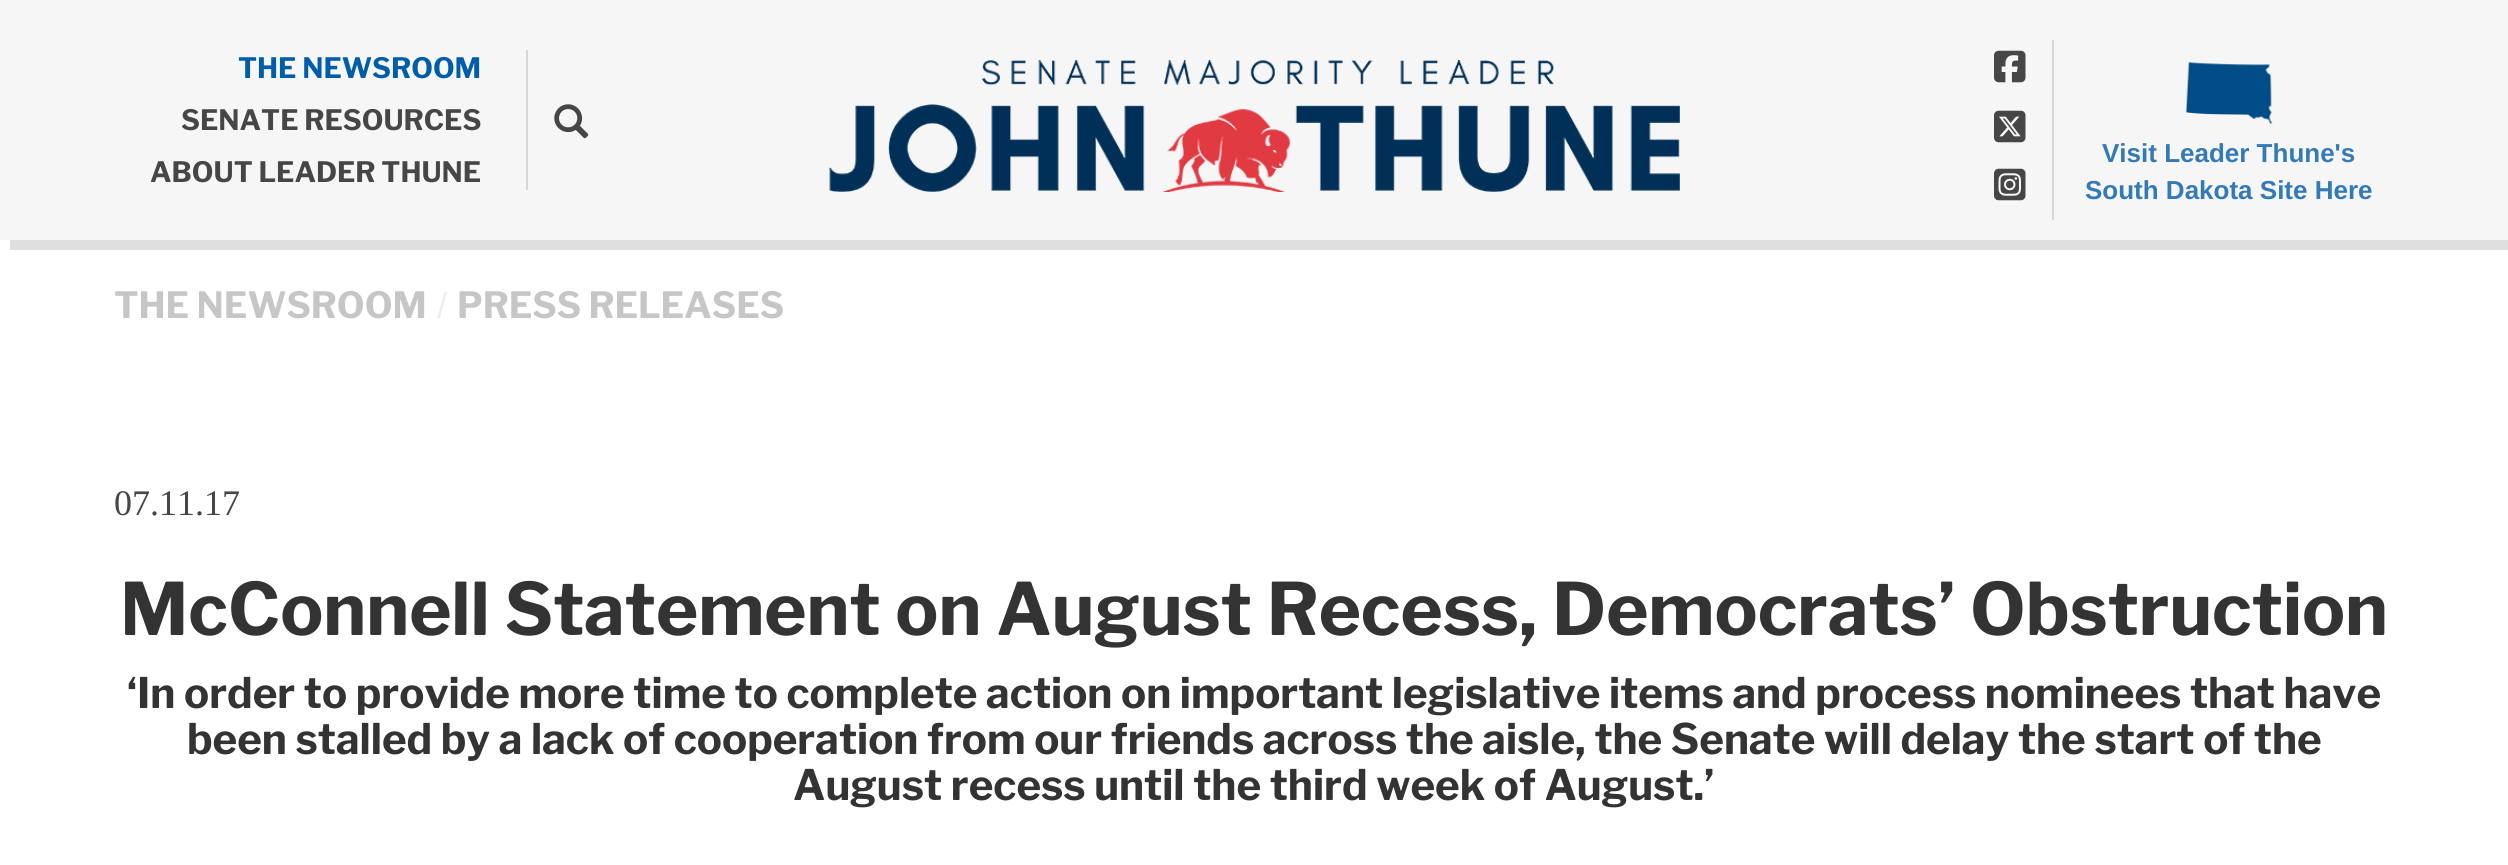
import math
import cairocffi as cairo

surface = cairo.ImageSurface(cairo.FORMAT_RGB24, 2508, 865)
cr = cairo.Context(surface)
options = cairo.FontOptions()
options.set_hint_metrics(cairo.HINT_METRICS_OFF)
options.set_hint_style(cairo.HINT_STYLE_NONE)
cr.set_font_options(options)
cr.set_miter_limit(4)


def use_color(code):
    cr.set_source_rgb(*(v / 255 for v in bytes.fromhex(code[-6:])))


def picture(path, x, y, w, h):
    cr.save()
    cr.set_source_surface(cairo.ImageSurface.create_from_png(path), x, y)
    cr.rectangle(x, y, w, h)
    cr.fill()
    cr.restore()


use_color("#ffffff")
cr.paint()
use_color("#e0dfdf")
cr.new_path()
cr.move_to(10, 240)
cr.line_to(10, 250)
cr.line_to(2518, 250)
cr.line_to(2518, 10)
cr.line_to(2508, 10)
cr.line_to(2508, 240)
cr.close_path()
cr.fill()
use_color("#f6f6f6")
cr.rectangle(0, 0, 2508, 240)
cr.fill()
cr.select_font_face("Libre Franklin", cairo.FONT_SLANT_NORMAL, cairo.FONT_WEIGHT_BOLD)
cr.set_font_size(28)
use_color("#005daa")
cr.move_to(238, 78)
cr.show_text("THE NEWSROOM")
use_color("#464646")
cr.move_to(181, 130)
cr.show_text("SENATE RESOURCES")
cr.move_to(150, 182)
cr.show_text("ABOUT LEADER THUNE")
use_color("#d7d7d7")
cr.rectangle(526, 50, 2, 140)
cr.fill()
picture("img1.png", 554, 104, 35, 35)
picture("img2.png", 829, 60, 851, 132)
cr.rectangle(2052, 40, 2, 180)
cr.fill()
picture("img3.png", 1994, 50, 32, 33)
picture("img4.png", 1994, 110, 32, 33)
picture("img5.png", 1994, 168, 32, 33)
picture("img6.png", 2185, 62, 88, 62)
cr.select_font_face("Liberation Sans", cairo.FONT_SLANT_NORMAL, cairo.FONT_WEIGHT_BOLD)
cr.set_font_size(26)
use_color("#337ab7")
cr.move_to(2102, 162)
cr.show_text("Visit Leader Thune's")
cr.move_to(2085, 199)
cr.show_text("South Dakota Site Here")
cr.select_font_face("Libre Franklin", cairo.FONT_SLANT_NORMAL, cairo.FONT_WEIGHT_BOLD)
cr.set_font_size(36)
use_color("#c6c6c6")
cr.move_to(114, 318)
cr.show_text("THE NEWSROOM")
cr.select_font_face("Liberation Sans")
use_color("#eeeeee")
cr.move_to(437, 318)
cr.show_text("/")
cr.select_font_face("Libre Franklin", cairo.FONT_SLANT_NORMAL, cairo.FONT_WEIGHT_BOLD)
use_color("#c6c6c6")
cr.move_to(457, 318)
cr.show_text("PRESS RELEASES")
cr.select_font_face("Liberation Serif")
use_color("#464646")
cr.move_to(114, 515)
cr.show_text("07.11.17")
cr.select_font_face("Libre Franklin", cairo.FONT_SLANT_NORMAL, cairo.FONT_WEIGHT_BOLD)
cr.set_font_size(72)
use_color("#333333")
cr.move_to(120, 635)
cr.show_text("McConnell Statement on August Recess, Democrats’ Obstruction")
cr.set_font_size(42)
cr.move_to(127, 708)
cr.show_text("‘In order to provide more time to complete action on important legislative items and process nominees that have")
cr.move_to(187, 754)
cr.show_text("been stalled by a lack of cooperation from our friends across the aisle, the Senate will delay the start of the")
cr.move_to(793, 800)
cr.show_text("August recess until the third week of August.’")
surface.write_to_png("result.png")
